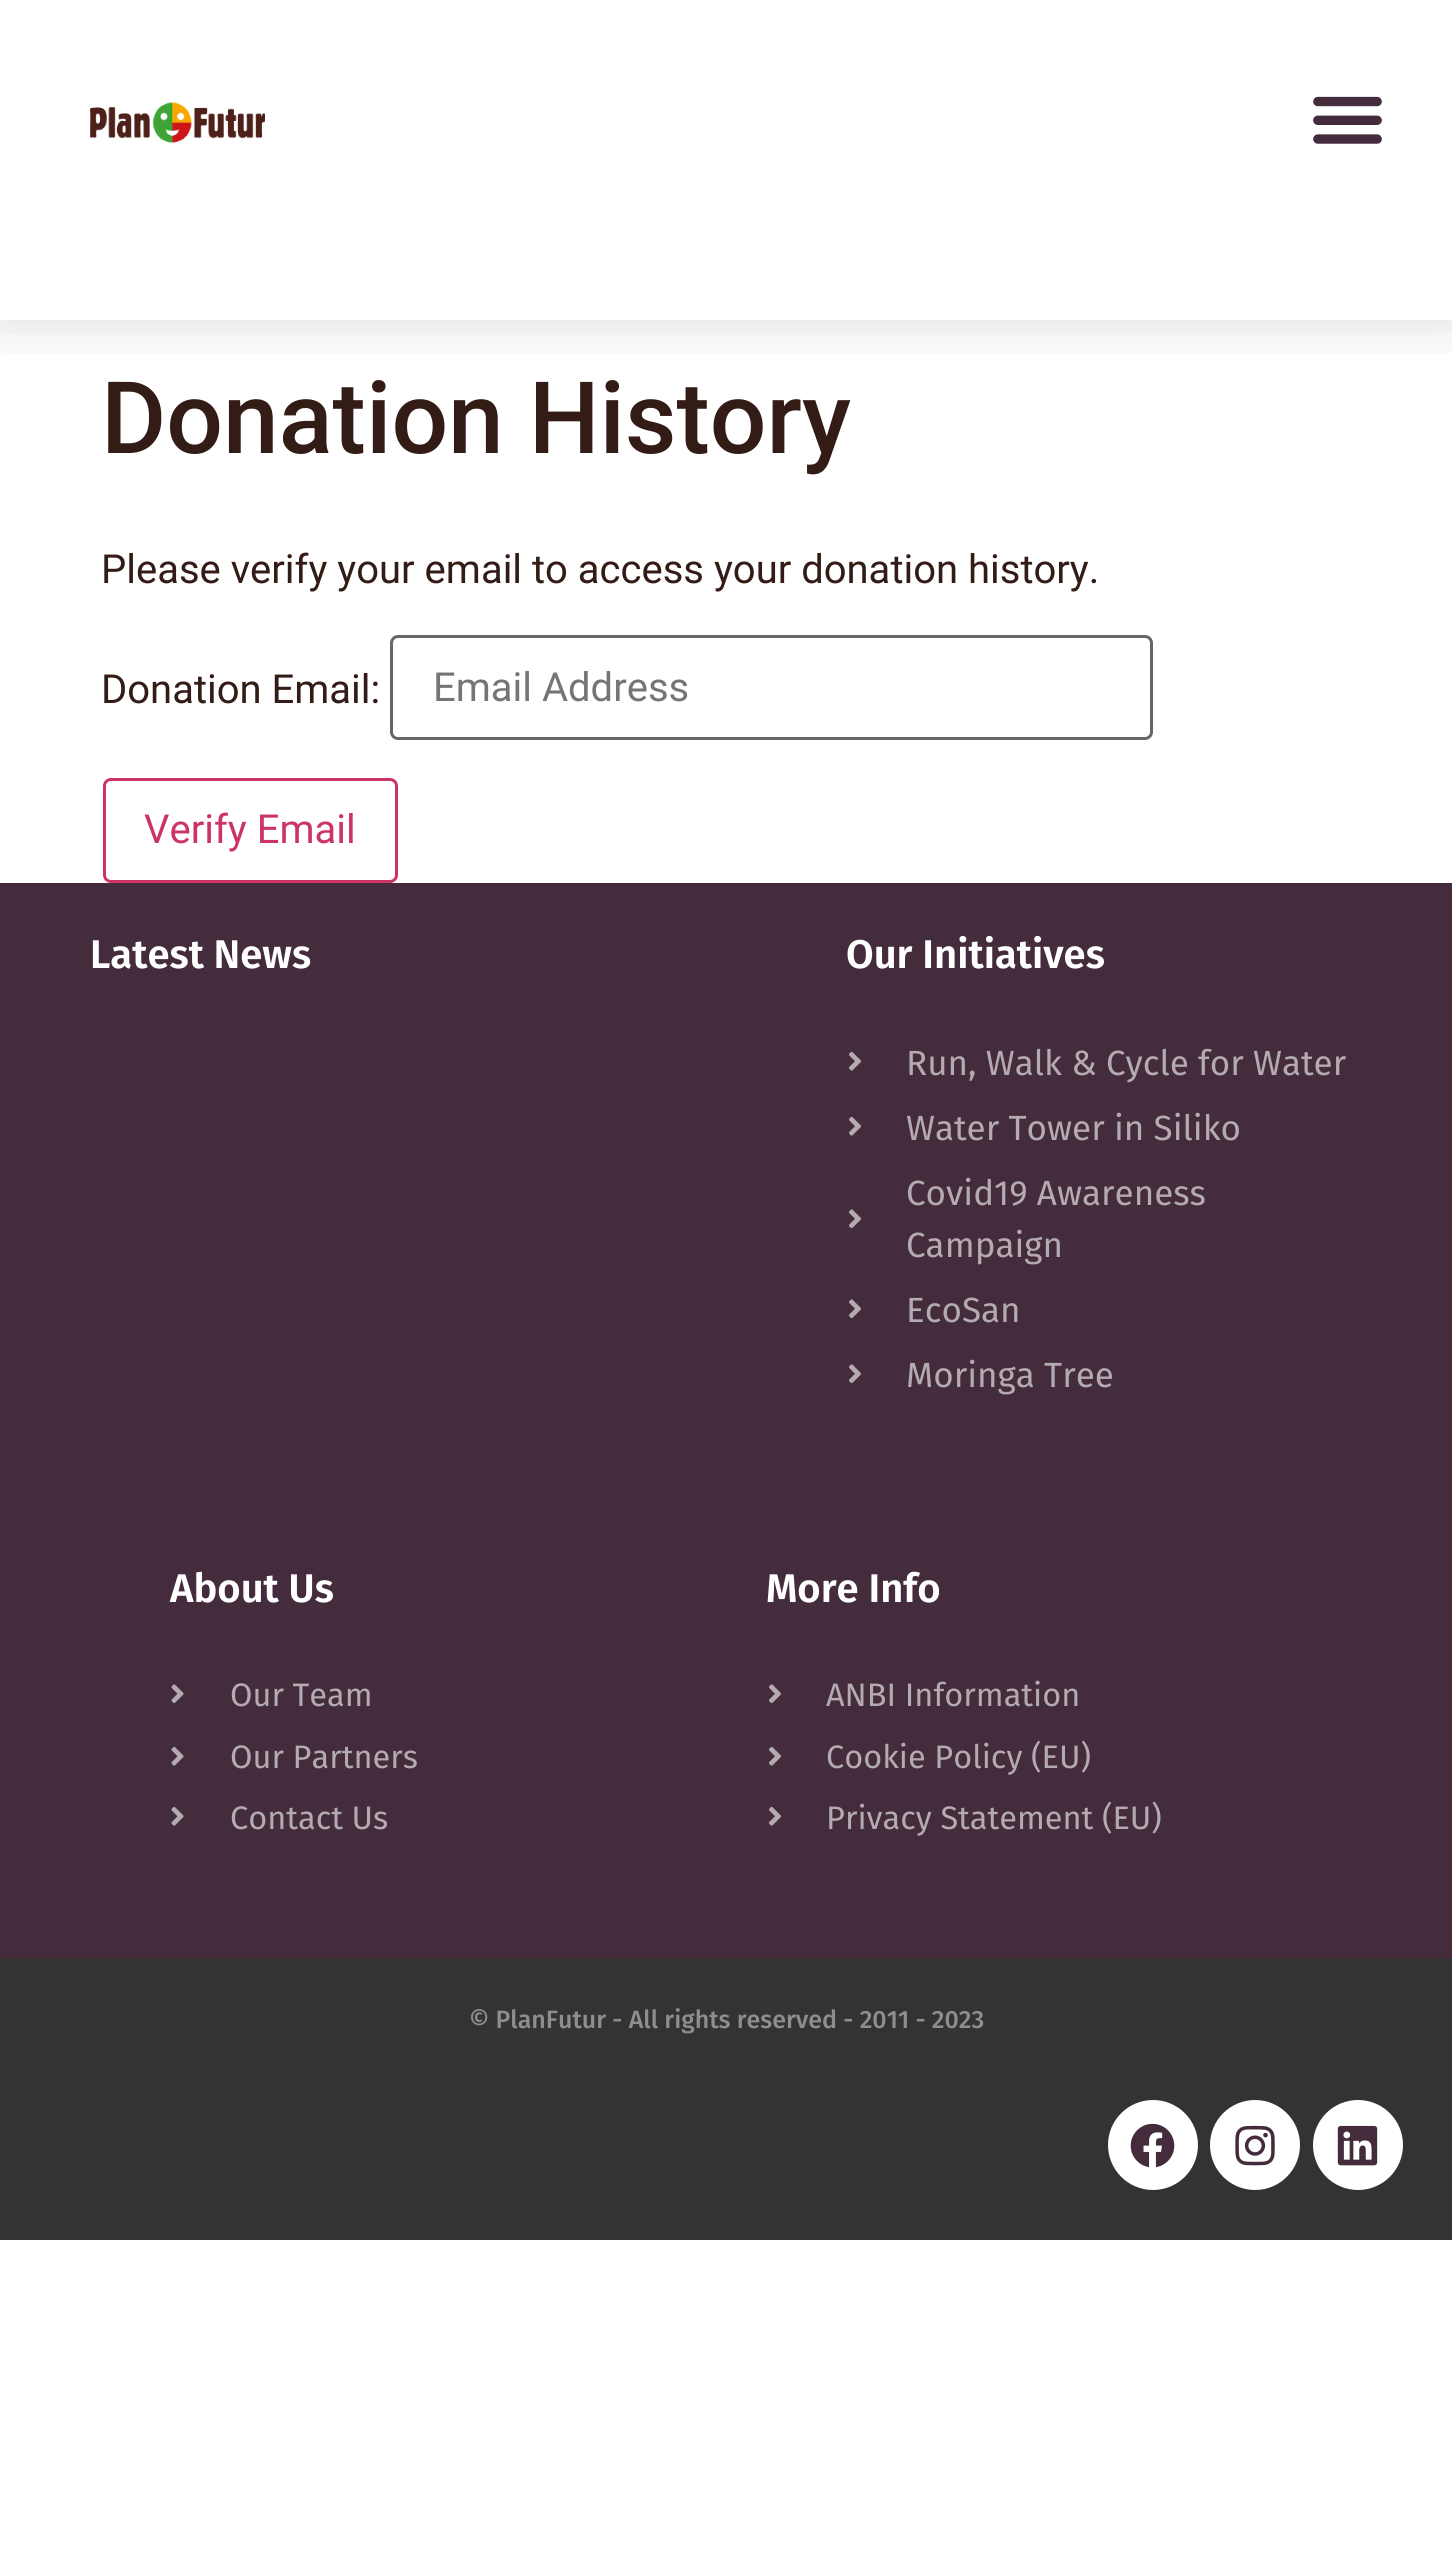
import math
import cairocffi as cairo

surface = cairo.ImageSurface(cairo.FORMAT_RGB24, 1452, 2571)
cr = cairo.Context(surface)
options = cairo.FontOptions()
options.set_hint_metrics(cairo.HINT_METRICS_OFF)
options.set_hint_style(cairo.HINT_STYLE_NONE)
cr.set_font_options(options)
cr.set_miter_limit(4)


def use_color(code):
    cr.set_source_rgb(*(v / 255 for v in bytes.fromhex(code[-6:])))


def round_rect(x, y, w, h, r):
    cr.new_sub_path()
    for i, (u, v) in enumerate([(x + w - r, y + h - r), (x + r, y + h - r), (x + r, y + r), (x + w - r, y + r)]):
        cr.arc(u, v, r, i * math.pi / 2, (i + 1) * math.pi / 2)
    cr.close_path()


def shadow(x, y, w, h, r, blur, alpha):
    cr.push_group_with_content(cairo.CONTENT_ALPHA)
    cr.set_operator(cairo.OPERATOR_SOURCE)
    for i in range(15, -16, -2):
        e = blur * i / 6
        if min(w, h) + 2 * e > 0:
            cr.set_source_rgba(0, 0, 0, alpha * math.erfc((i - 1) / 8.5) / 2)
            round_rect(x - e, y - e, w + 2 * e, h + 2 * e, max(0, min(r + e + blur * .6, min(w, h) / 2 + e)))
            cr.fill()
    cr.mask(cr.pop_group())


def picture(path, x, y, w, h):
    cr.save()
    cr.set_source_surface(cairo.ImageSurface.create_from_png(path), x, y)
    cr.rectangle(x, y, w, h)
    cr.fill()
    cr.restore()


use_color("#ffffff")
cr.paint()
cr.save()
cr.rectangle(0, 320, 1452, 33)
cr.clip()
use_color("#000000")
shadow(0, 0, 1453, 320, 0, 30, 0.15)
cr.restore()
picture("img1.png", 90, 102, 175, 41)
picture("img2.png", 1313, 96, 69, 48)
cr.select_font_face("Roboto Medium")
cr.set_font_size(100)
use_color("#331c16")
cr.move_to(101, 453)
cr.show_text("Donation History")
cr.select_font_face("Roboto")
cr.set_font_size(40)
cr.move_to(101, 583)
cr.show_text("Please verify your email to access your donation history.")
cr.move_to(101, 703)
cr.show_text("Donation Email:")
round_rect(391.5, 636.5, 760, 102, 6.5)
use_color("#666666")
cr.set_line_width(3)
cr.stroke()
use_color("#757575")
cr.move_to(433, 701)
cr.show_text("Email Address")
round_rect(104.5, 779.5, 292, 102, 6.5)
use_color("#cc3366")
cr.stroke()
cr.move_to(144, 843)
cr.show_text("Verify Email")
use_color("#442c3c")
cr.rectangle(0, 883, 1452, 1075)
cr.fill()
cr.select_font_face("Fira Sans SemiBold")
use_color("#ffffff")
cr.move_to(90, 968)
cr.show_text("Latest News")
cr.move_to(846, 968)
cr.show_text("Our Initiatives")
picture("img3.png", 849, 1051, 12, 20)
cr.select_font_face("Fira Sans")
cr.set_font_size(35)
use_color("#b4abb1")
cr.move_to(906, 1075)
cr.show_text("Run, Walk & Cycle for Water")
picture("img3.png", 849, 1116, 12, 20)
cr.move_to(906, 1140)
cr.show_text("Water Tower in Siliko")
picture("img4.png", 849, 1209, 12, 20)
cr.move_to(906, 1205)
cr.show_text("Covid19 Awareness")
cr.move_to(906, 1257)
cr.show_text("Campaign")
picture("img4.png", 849, 1299, 12, 20)
cr.move_to(906, 1322)
cr.show_text("EcoSan")
picture("img4.png", 849, 1364, 12, 20)
cr.move_to(906, 1387)
cr.show_text("Moringa Tree")
cr.select_font_face("Fira Sans SemiBold")
cr.set_font_size(40)
use_color("#ffffff")
cr.move_to(170, 1602)
cr.show_text("About Us")
picture("img5.png", 171, 1684, 13, 20)
cr.select_font_face("Fira Sans")
cr.set_font_size(32.5)
use_color("#b4abb1")
cr.move_to(230, 1706)
cr.show_text("Our Team")
picture("img6.png", 171, 1746, 13, 20)
cr.move_to(230, 1768)
cr.show_text("Our Partners")
picture("img6.png", 171, 1806, 13, 20)
cr.move_to(230, 1829)
cr.show_text("Contact Us")
cr.select_font_face("Fira Sans SemiBold")
cr.set_font_size(40)
use_color("#ffffff")
cr.move_to(766, 1602)
cr.show_text("More Info")
picture("img4.png", 769, 1684, 12, 20)
cr.select_font_face("Fira Sans")
cr.set_font_size(32.5)
use_color("#b4abb1")
cr.move_to(826, 1706)
cr.show_text("ANBI Information")
picture("img3.png", 769, 1746, 12, 20)
cr.move_to(826, 1768)
cr.show_text("Cookie Policy (EU)")
picture("img3.png", 769, 1806, 12, 20)
cr.move_to(826, 1829)
cr.show_text("Privacy Statement (EU)")
use_color("#333333")
cr.rectangle(0, 1958, 1452, 282)
cr.fill()
cr.select_font_face("Fira Sans Medium")
cr.set_font_size(25)
use_color("#8e8e8e")
cr.move_to(469, 2028)
cr.show_text("© PlanFutur - All rights reserved - 2011 - 2023")
use_color("#ffffff")
cr.new_path()
cr.arc(1153, 2145, 45, 0, 2 * math.pi)
cr.fill()
picture("img7.png", 1130, 2123, 45, 45)
cr.arc(1255, 2145, 45, 0, 2 * math.pi)
cr.fill()
picture("img8.png", 1235, 2125, 40, 41)
cr.arc(1358, 2145, 45, 0, 2 * math.pi)
cr.fill()
picture("img9.png", 1337, 2125, 41, 41)
surface.write_to_png("result.png")
